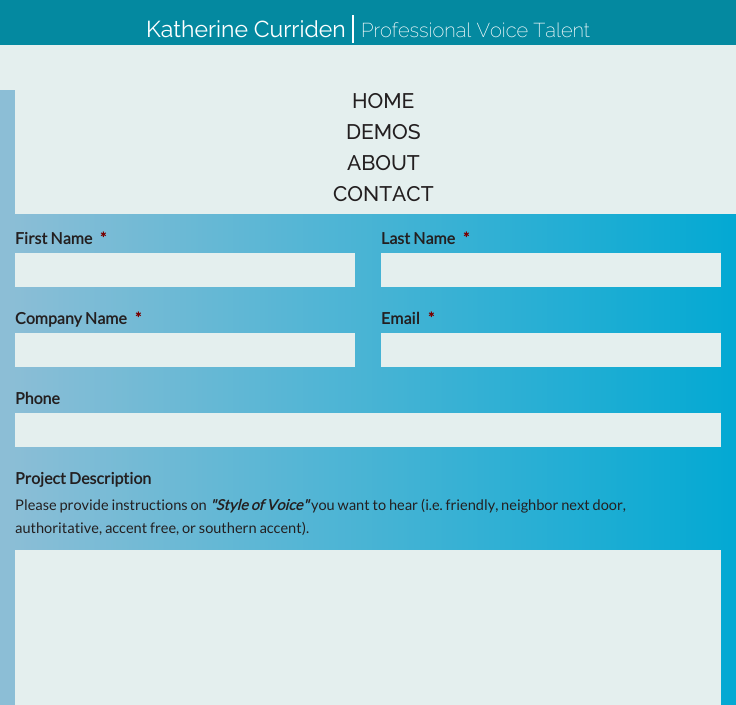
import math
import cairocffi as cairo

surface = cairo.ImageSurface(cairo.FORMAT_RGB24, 736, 705)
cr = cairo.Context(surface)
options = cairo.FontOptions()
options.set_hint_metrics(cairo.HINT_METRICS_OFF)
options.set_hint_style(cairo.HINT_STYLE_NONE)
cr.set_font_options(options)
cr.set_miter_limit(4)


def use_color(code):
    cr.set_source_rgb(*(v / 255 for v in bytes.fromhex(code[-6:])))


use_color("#ffffff")
cr.paint()
use_color("#0489a0")
cr.rectangle(0, 0, 736, 45)
cr.fill()
use_color("#e4efee")
cr.rectangle(0, 45, 736, 45)
cr.fill()
use_color("#ffffff")
cr.rectangle(352, 15, 2, 28)
cr.fill()
cr.select_font_face("Raleway")
cr.set_font_size(23)
cr.move_to(146, 37)
cr.show_text("Katherine Curriden")
cr.select_font_face("Raleway ExtraLight")
cr.set_font_size(20)
cr.move_to(361, 37)
cr.show_text("Professional Voice Talent")
gradient = cairo.LinearGradient(0, 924, 736, 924)
gradient.add_color_stop_rgba(0.01, 0.549, 0.745, 0.839, 1)
gradient.add_color_stop_rgba(1, 0.012, 0.663, 0.827, 1)
cr.set_source(gradient)
cr.rectangle(0, 90, 736, 615)
cr.fill()
use_color("#e4efee")
cr.rectangle(15, 90, 721, 124)
cr.fill()
cr.select_font_face("Raleway Medium")
cr.set_font_size(21)
use_color("#231f20")
cr.move_to(352, 108)
cr.show_text("HOME")
cr.move_to(346, 139)
cr.show_text("DEMOS")
cr.move_to(347, 170)
cr.show_text("ABOUT")
cr.move_to(333, 201)
cr.show_text("CONTACT")
cr.select_font_face("Lato", cairo.FONT_SLANT_NORMAL, cairo.FONT_WEIGHT_BOLD)
cr.set_font_size(16)
cr.move_to(15, 244)
cr.show_text("First Name")
use_color("#790000")
cr.move_to(100, 244)
cr.show_text("*")
use_color("#e4efee")
cr.rectangle(15, 253, 340, 34)
cr.fill()
use_color("#231f20")
cr.move_to(381, 244)
cr.show_text("Last Name")
use_color("#790000")
cr.move_to(463, 244)
cr.show_text("*")
use_color("#e4efee")
cr.rectangle(381, 253, 340, 34)
cr.fill()
use_color("#231f20")
cr.move_to(15, 324)
cr.show_text("Company Name")
use_color("#790000")
cr.move_to(135, 324)
cr.show_text("*")
use_color("#e4efee")
cr.rectangle(15, 333, 340, 34)
cr.fill()
use_color("#231f20")
cr.move_to(381, 324)
cr.show_text("Email")
use_color("#790000")
cr.move_to(428, 324)
cr.show_text("*")
use_color("#e4efee")
cr.rectangle(381, 333, 340, 34)
cr.fill()
use_color("#231f20")
cr.move_to(15, 404)
cr.show_text("Phone")
use_color("#e4efee")
cr.rectangle(15, 413, 706, 34)
cr.fill()
use_color("#231f20")
cr.move_to(15, 484)
cr.show_text("Project Description")
cr.select_font_face("Lato")
cr.set_font_size(14.6)
cr.move_to(15, 510)
cr.show_text("Please provide instructions on")
cr.select_font_face("Lato", cairo.FONT_SLANT_ITALIC, cairo.FONT_WEIGHT_BOLD)
cr.move_to(210, 510)
cr.show_text("\"Style of Voice\"")
cr.select_font_face("Lato")
cr.move_to(311, 510)
cr.show_text("you want to hear (i.e. friendly, neighbor next door,")
cr.move_to(15, 533)
cr.show_text("authoritative, accent free, or southern accent).")
use_color("#e4efee")
cr.rectangle(15, 550, 706, 155)
cr.fill()
surface.write_to_png("result.png")
